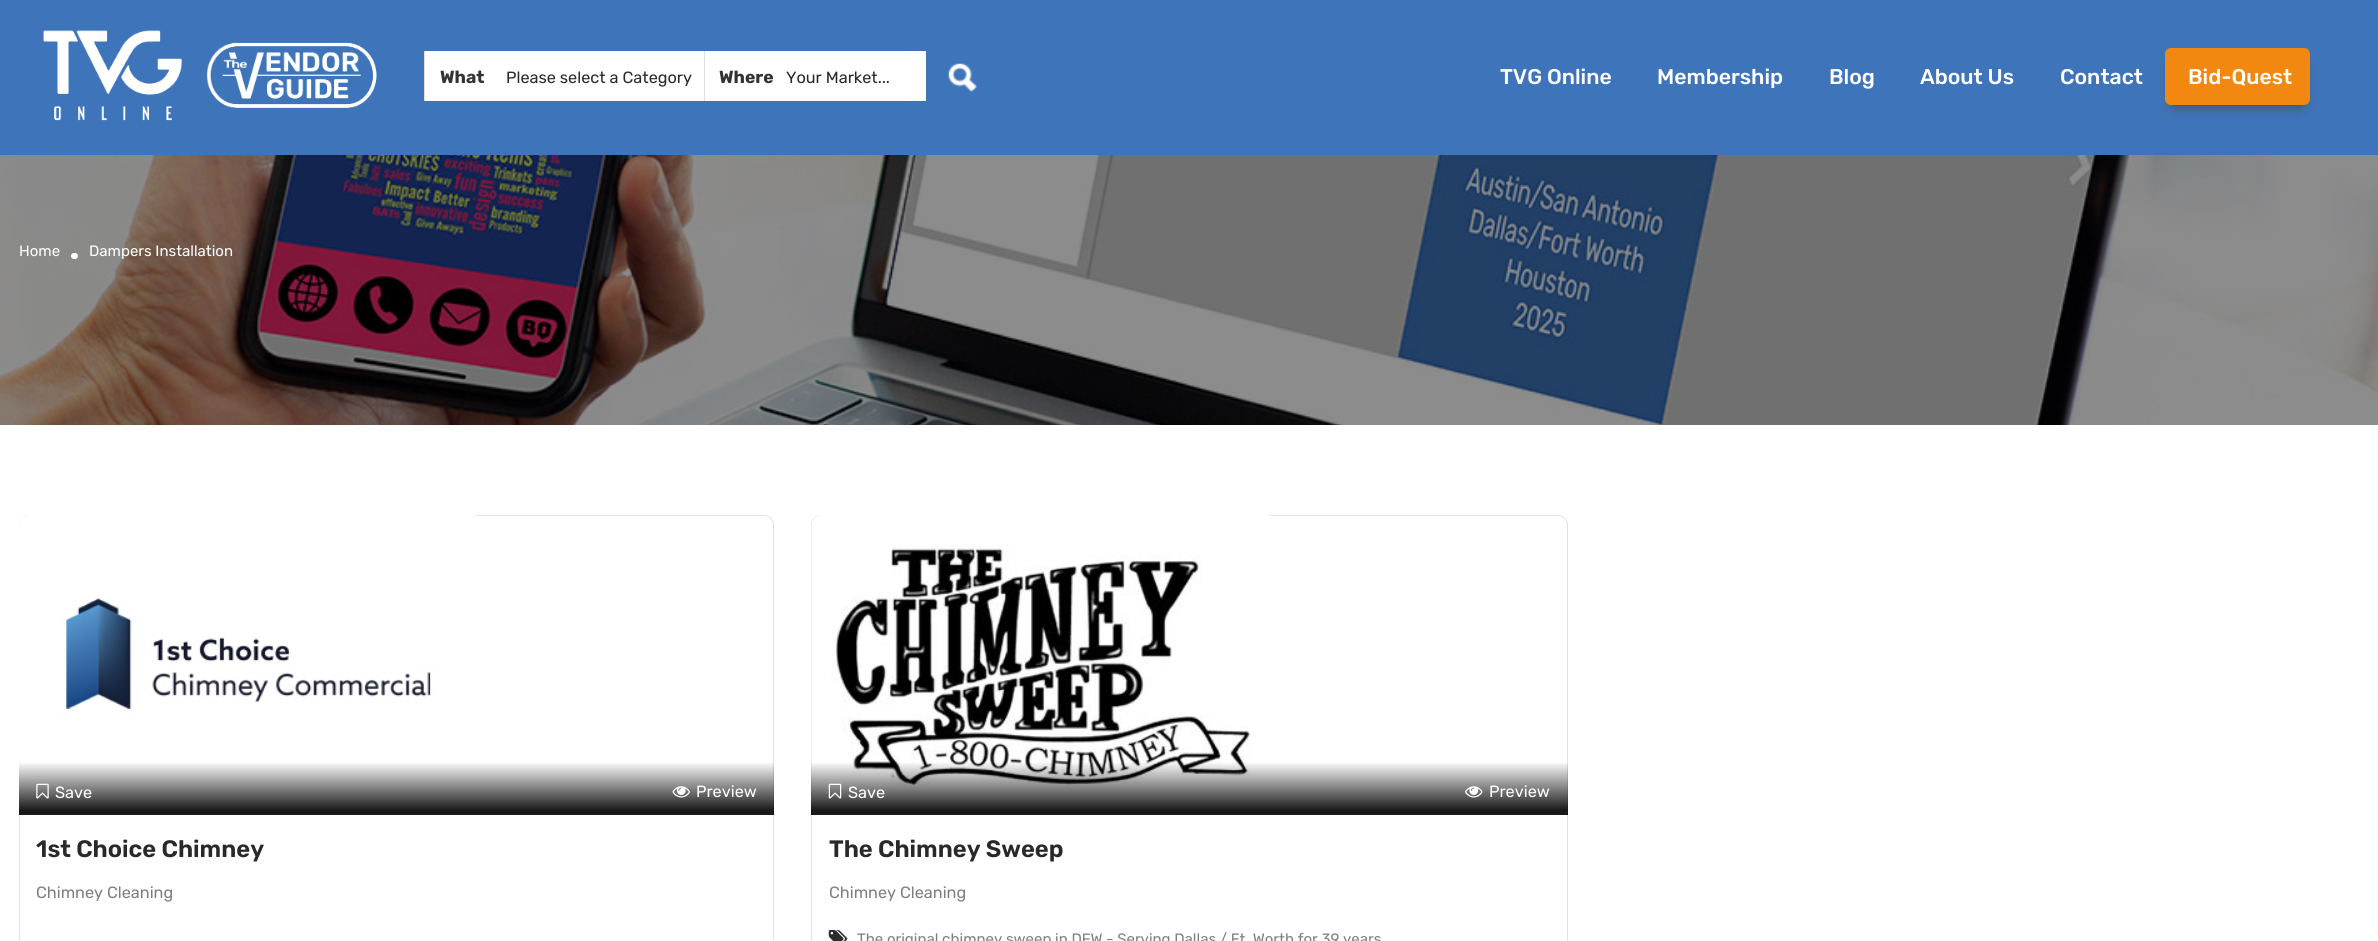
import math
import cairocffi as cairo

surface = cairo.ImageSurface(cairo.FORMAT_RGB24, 2378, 941)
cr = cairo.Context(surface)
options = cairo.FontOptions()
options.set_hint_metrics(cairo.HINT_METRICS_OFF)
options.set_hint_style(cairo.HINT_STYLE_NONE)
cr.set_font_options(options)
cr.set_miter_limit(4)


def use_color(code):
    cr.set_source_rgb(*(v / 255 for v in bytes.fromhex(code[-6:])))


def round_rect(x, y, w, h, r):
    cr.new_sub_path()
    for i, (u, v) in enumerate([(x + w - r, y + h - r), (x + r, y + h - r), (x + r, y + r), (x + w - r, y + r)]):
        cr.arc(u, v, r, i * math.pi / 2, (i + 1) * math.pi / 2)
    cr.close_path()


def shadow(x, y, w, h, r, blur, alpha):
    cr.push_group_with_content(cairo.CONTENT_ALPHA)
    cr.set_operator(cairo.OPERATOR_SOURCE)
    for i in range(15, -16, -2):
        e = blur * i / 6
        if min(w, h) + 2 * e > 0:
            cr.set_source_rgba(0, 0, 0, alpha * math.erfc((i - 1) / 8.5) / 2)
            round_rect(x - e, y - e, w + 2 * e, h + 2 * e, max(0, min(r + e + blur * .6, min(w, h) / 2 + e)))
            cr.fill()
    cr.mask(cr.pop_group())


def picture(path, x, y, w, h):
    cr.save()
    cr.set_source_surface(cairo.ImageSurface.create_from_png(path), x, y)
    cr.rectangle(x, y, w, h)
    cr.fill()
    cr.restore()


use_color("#ffffff")
cr.paint()
use_color("#3e74ba")
cr.rectangle(0, 0, 2378, 155)
cr.fill()
picture("img1.png", 43, 30, 334, 91)
use_color("#ffffff")
cr.rectangle(425, 51, 279, 50)
cr.fill()
use_color("#dedede")
cr.rectangle(424, 51, 1, 50)
cr.fill()
cr.select_font_face("Rubik", cairo.FONT_SLANT_NORMAL, cairo.FONT_WEIGHT_BOLD)
cr.set_font_size(17.5)
use_color("#333333")
cr.move_to(440, 83)
cr.show_text("What")
cr.select_font_face("Rubik")
cr.set_font_size(16.25)
use_color("#292929")
cr.move_to(506, 83)
cr.show_text("Please select a Category")
use_color("#ffffff")
cr.rectangle(705, 51, 221, 50)
cr.fill()
use_color("#dedede")
cr.rectangle(704, 51, 1, 50)
cr.fill()
cr.select_font_face("Rubik", cairo.FONT_SLANT_NORMAL, cairo.FONT_WEIGHT_BOLD)
cr.set_font_size(17.5)
use_color("#333333")
cr.move_to(719, 83)
cr.show_text("Where")
cr.select_font_face("Rubik")
cr.set_font_size(16.25)
use_color("#292929")
cr.move_to(786, 83)
cr.show_text("Your Market...")
picture("img2.png", 948, 63, 29, 29)
cr.select_font_face("Rubik Medium")
cr.set_font_size(21.25)
use_color("#ffffff")
cr.move_to(1500, 84)
cr.show_text("TVG Online")
cr.move_to(1657, 84)
cr.show_text("Membership")
cr.move_to(1829, 84)
cr.show_text("Blog")
cr.move_to(1920, 84)
cr.show_text("About Us")
cr.move_to(2060, 84)
cr.show_text("Contact")
use_color("#454545")
shadow(2174, 65, 127, 40, 0, 7, 1)
use_color("#f2880f")
round_rect(2165, 48, 145, 57, 6)
cr.fill()
use_color("#ffffff")
cr.move_to(2188, 84)
cr.show_text("Bid-Quest")
picture("img3.png", 0, 155, 2378, 270)
cr.select_font_face("Rubik")
cr.set_font_size(15)
cr.move_to(19, 256)
cr.show_text("Home")
round_rect(71, 253, 7, 6, 3)
cr.fill()
cr.move_to(89, 256)
cr.show_text("Dampers Installation")
round_rect(19.5, 515.5, 754, 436, 9.5)
use_color("#e3e3e3")
cr.set_line_width(1)
cr.stroke()
picture("img4.png", 19, 515, 459, 300)
gradient = cairo.LinearGradient(396, 815, 396, 758)
gradient.add_color_stop_rgba(0.08, 0, 0, 0, 0.9)
gradient.add_color_stop_rgba(0.94, 0, 0, 0, 0)
cr.set_source(gradient)
cr.rectangle(19, 763, 755, 52)
cr.fill()
picture("img5.png", 36, 783, 13, 16)
cr.set_font_size(16.25)
use_color("#ffffff")
cr.move_to(55, 798)
cr.show_text("Save")
picture("img6.png", 672, 786, 18, 12)
cr.move_to(696, 797)
cr.show_text("Preview")
cr.select_font_face("Rubik SemiBold")
cr.set_font_size(23.75)
use_color("#292929")
cr.move_to(36, 857)
cr.show_text("1st Choice Chimney")
cr.select_font_face("Rubik")
cr.set_font_size(16.25)
use_color("#7f7f7f")
cr.move_to(36, 898)
cr.show_text("Chimney Cleaning")
round_rect(811.5, 515.5, 756, 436, 9.5)
use_color("#e3e3e3")
cr.stroke()
picture("img7.png", 811, 515, 459, 300)
gradient = cairo.LinearGradient(1189, 815, 1189, 758)
gradient.add_color_stop_rgba(0.08, 0, 0, 0, 0.9)
gradient.add_color_stop_rgba(0.94, 0, 0, 0, 0)
cr.set_source(gradient)
cr.rectangle(811, 763, 757, 52)
cr.fill()
picture("img8.png", 828, 783, 14, 16)
use_color("#ffffff")
cr.move_to(848, 798)
cr.show_text("Save")
picture("img9.png", 1465, 786, 18, 12)
cr.move_to(1489, 797)
cr.show_text("Preview")
cr.select_font_face("Rubik SemiBold")
cr.set_font_size(23.75)
use_color("#292929")
cr.move_to(829, 857)
cr.show_text("The Chimney Sweep")
cr.select_font_face("Rubik")
cr.set_font_size(16.25)
use_color("#7f7f7f")
cr.move_to(829, 898)
cr.show_text("Chimney Cleaning")
picture("img10.png", 828, 930, 20, 11)
cr.set_font_size(15)
cr.move_to(857, 944)
cr.show_text("The original chimney sweep in DFW - Serving Dallas / Ft. Worth for 39 years")
surface.write_to_png("result.png")
